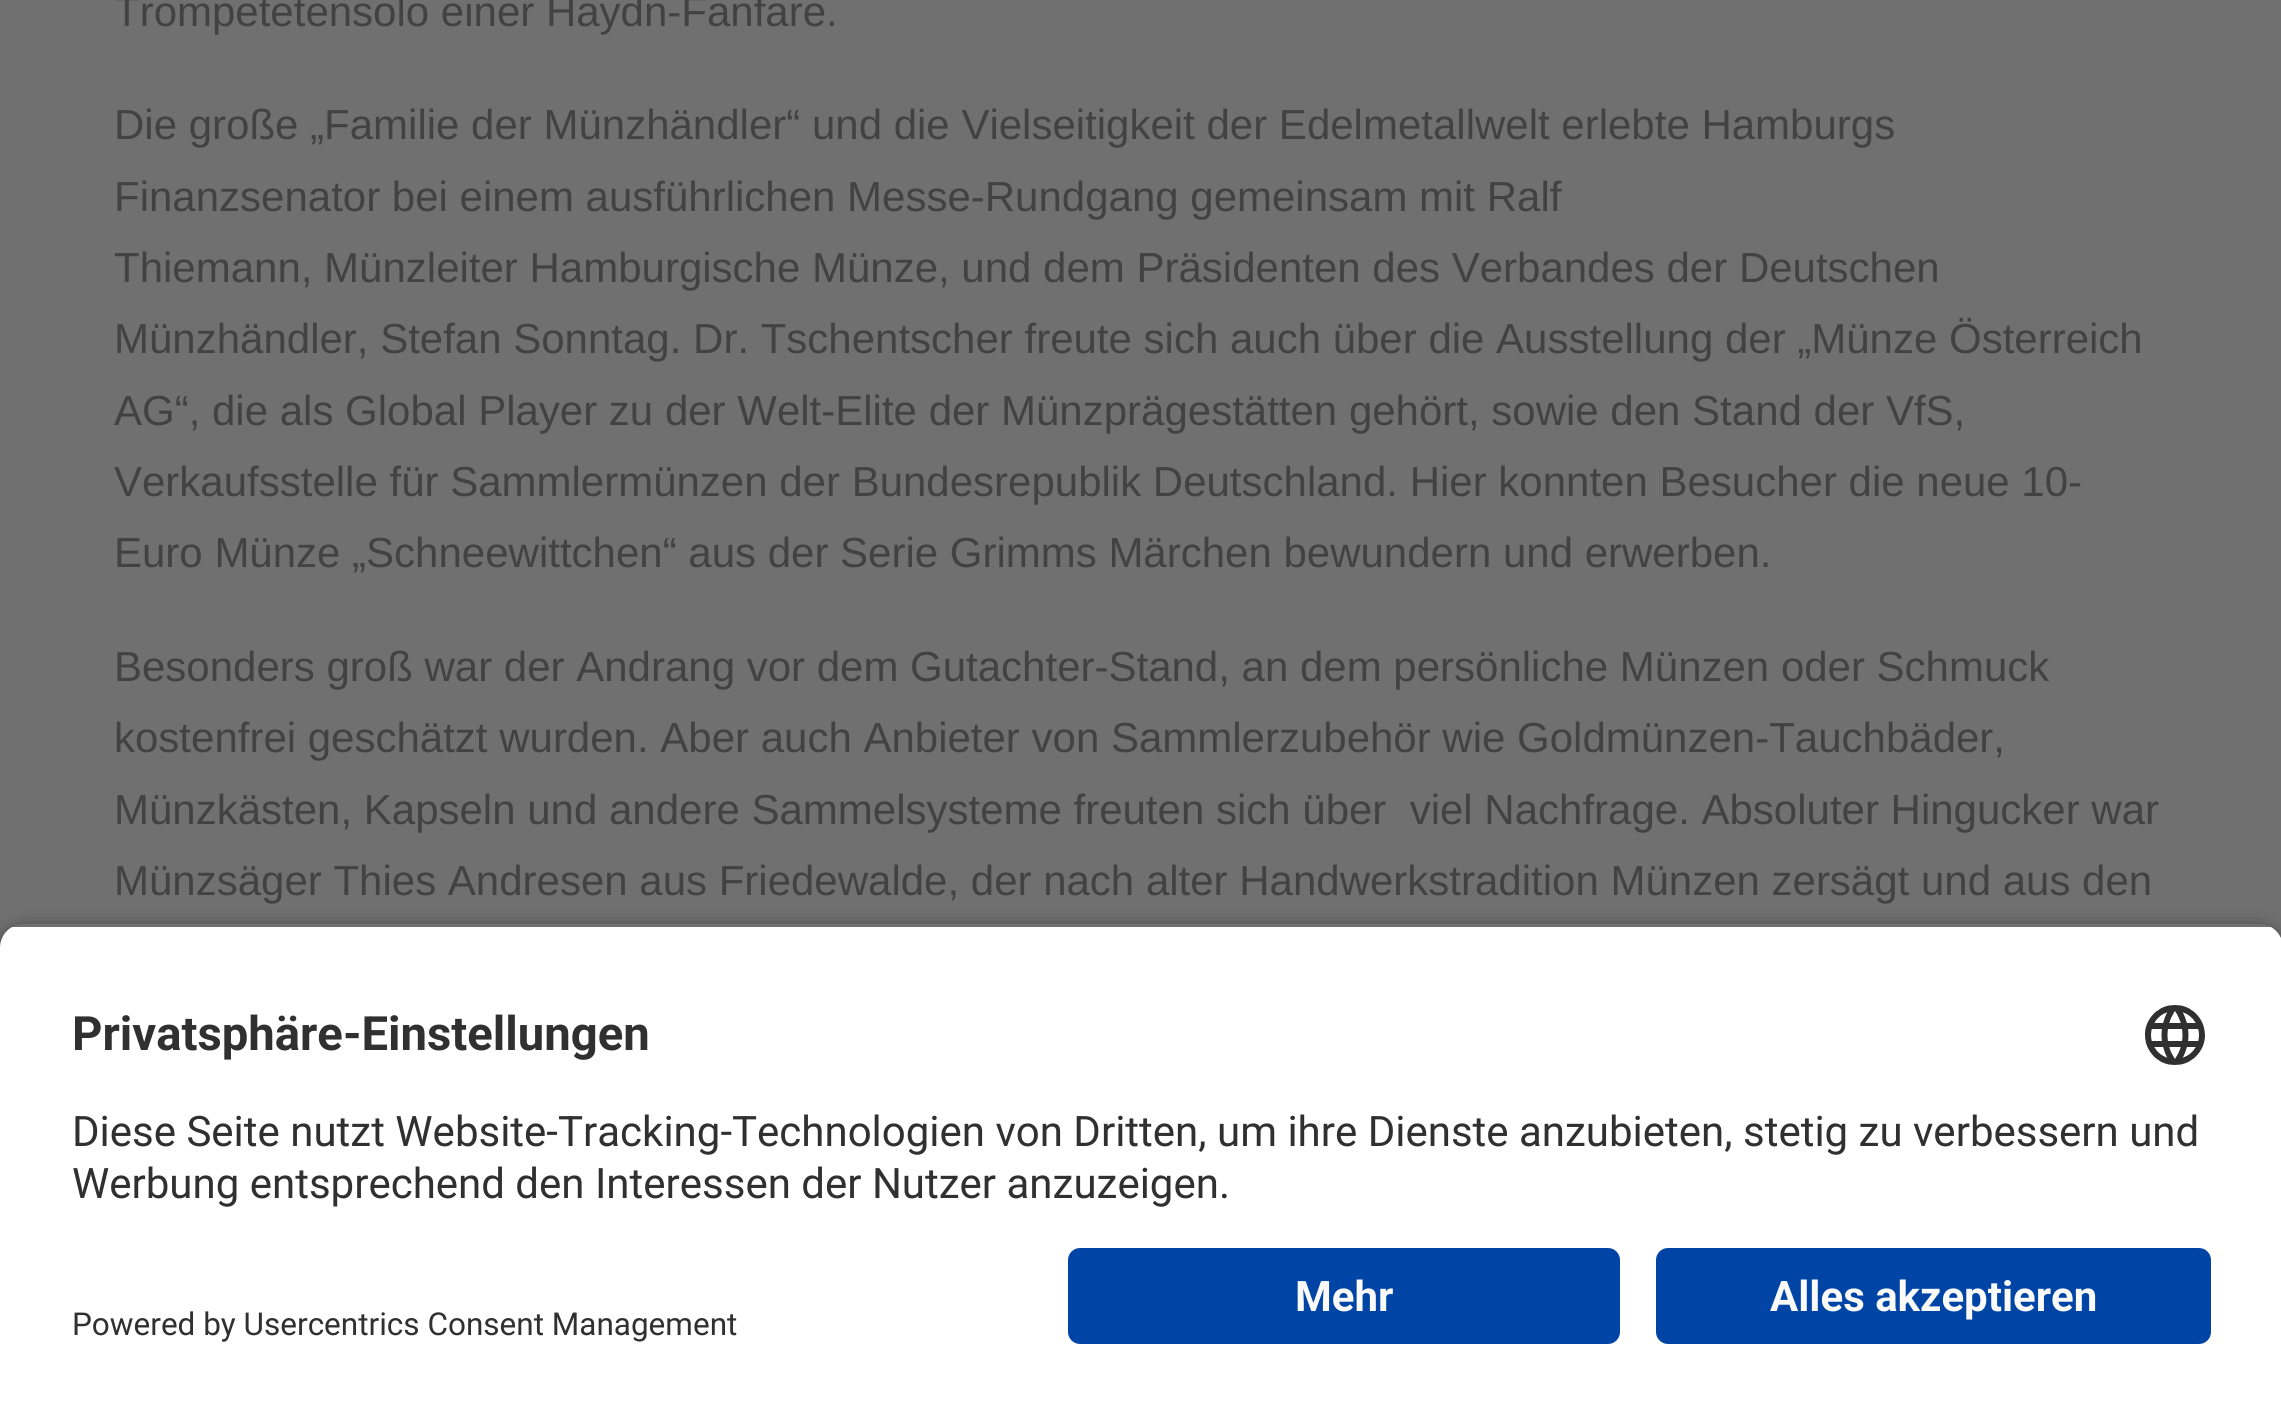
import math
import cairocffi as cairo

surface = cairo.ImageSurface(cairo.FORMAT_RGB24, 2281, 1416)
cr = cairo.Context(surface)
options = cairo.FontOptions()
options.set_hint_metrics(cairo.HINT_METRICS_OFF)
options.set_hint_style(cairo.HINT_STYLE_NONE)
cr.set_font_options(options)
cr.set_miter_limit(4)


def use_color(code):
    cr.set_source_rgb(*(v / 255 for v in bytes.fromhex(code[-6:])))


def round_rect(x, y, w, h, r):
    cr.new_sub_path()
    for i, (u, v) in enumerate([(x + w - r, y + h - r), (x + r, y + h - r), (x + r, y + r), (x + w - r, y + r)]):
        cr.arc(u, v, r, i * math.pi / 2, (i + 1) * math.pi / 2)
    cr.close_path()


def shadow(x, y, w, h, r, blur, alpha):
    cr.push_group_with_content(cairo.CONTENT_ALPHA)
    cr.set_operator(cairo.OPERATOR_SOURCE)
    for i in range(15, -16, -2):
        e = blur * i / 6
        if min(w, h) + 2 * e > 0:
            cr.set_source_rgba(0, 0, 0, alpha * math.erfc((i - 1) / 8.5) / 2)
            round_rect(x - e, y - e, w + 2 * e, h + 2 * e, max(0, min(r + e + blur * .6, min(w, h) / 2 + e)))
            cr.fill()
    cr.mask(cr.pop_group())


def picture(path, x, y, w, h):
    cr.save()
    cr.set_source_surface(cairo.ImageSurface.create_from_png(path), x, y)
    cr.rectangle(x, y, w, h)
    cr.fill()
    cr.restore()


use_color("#707070")
cr.paint()
cr.select_font_face("Liberation Sans")
cr.set_font_size(42)
use_color("#424242")
cr.move_to(114, 26)
cr.show_text("Trompetetensolo einer Haydn-Fanfare.")
cr.move_to(114, 139)
cr.show_text("Die große „Familie der Münzhändler“ und die Vielseitigkeit der Edelmetallwelt erlebte Hamburgs")
cr.move_to(114, 211)
cr.show_text("Finanzsenator bei einem ausführlichen Messe-Rundgang gemeinsam mit Ralf")
cr.move_to(114, 282)
cr.show_text("Thiemann, Münzleiter Hamburgische Münze, und dem Präsidenten des Verbandes der Deutschen")
cr.move_to(114, 353)
cr.show_text("Münzhändler, Stefan Sonntag. Dr. Tschentscher freute sich auch über die Ausstellung der „Münze Österreich")
cr.move_to(114, 425)
cr.show_text("AG“, die als Global Player zu der Welt-Elite der Münzprägestätten gehört, sowie den Stand der VfS,")
cr.move_to(114, 496)
cr.show_text("Verkaufsstelle für Sammlermünzen der Bundesrepublik Deutschland. Hier konnten Besucher die neue 10-")
cr.move_to(114, 567)
cr.show_text("Euro Münze „Schneewittchen“ aus der Serie Grimms Märchen bewundern und erwerben.")
cr.move_to(114, 681)
cr.show_text("Besonders groß war der Andrang vor dem Gutachter-Stand, an dem persönliche Münzen oder Schmuck")
cr.move_to(114, 752)
cr.show_text("kostenfrei geschätzt wurden. Aber auch Anbieter von Sammlerzubehör wie Goldmünzen-Tauchbäder,")
cr.move_to(114, 824)
cr.show_text("Münzkästen, Kapseln und andere Sammelsysteme freuten sich über  viel Nachfrage. Absoluter Hingucker war")
cr.move_to(114, 895)
cr.show_text("Münzsäger Thies Andresen aus Friedewalde, der nach alter Handwerkstradition Münzen zersägt und aus den")
cr.save()
cr.set_fill_rule(cairo.FILL_RULE_EVEN_ODD)
cr.new_path()
cr.move_to(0, 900)
cr.line_to(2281, 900)
cr.line_to(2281, 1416)
cr.line_to(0, 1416)
cr.close_path()
cr.move_to(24, 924)
cr.line_to(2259, 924)
cr.curve_to(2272.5, 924, 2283, 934.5, 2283, 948)
cr.line_to(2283, 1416)
cr.line_to(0, 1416)
cr.line_to(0, 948)
cr.curve_to(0, 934.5, 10.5, 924, 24, 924)
cr.close_path()
cr.clip()
use_color("#000000")
shadow(0, 933, 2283, 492, 24, 10.5, 0.8)
cr.restore()
cr.save()
cr.new_path()
cr.move_to(24, 924)
cr.line_to(2259, 924)
cr.curve_to(2272.5, 924, 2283, 934.5, 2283, 948)
cr.line_to(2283, 1224)
cr.line_to(0, 1224)
cr.line_to(0, 948)
cr.curve_to(0, 934.5, 10.5, 924, 24, 924)
cr.close_path()
cr.clip()
use_color("#ffffff")
cr.rectangle(0, 927, 2281, 297)
cr.fill()
cr.restore()
cr.select_font_face("Roboto", cairo.FONT_SLANT_NORMAL, cairo.FONT_WEIGHT_BOLD)
cr.set_font_size(47.25)
use_color("#303030")
cr.move_to(72, 1050)
cr.show_text("Privatsphäre-Einstellungen")
picture("img1.png", 2145, 1005, 60, 60)
cr.select_font_face("Roboto")
cr.set_font_size(42)
cr.move_to(72, 1146)
cr.show_text("Diese Seite nutzt Website-Tracking-Technologien von Dritten, um ihre Dienste anzubieten, stetig zu verbessern und")
cr.move_to(72, 1198)
cr.show_text("Werbung entsprechend den Interessen der Nutzer anzuzeigen.")
use_color("#ffffff")
cr.rectangle(0, 1224, 2281, 192)
cr.fill()
use_color("#0045a5")
round_rect(1068, 1248, 552, 96, 12)
cr.fill()
cr.select_font_face("Roboto", cairo.FONT_SLANT_NORMAL, cairo.FONT_WEIGHT_BOLD)
use_color("#fafafa")
cr.move_to(1295, 1311)
cr.show_text("Mehr")
use_color("#0045a5")
round_rect(1656, 1248, 555, 96, 12)
cr.fill()
use_color("#fafafa")
cr.move_to(1770, 1311)
cr.show_text("Alles akzeptieren")
cr.select_font_face("Roboto")
cr.set_font_size(31.5)
use_color("#303030")
cr.move_to(72, 1335)
cr.show_text("Powered by Usercentrics Consent Management")
surface.write_to_png("result.png")
